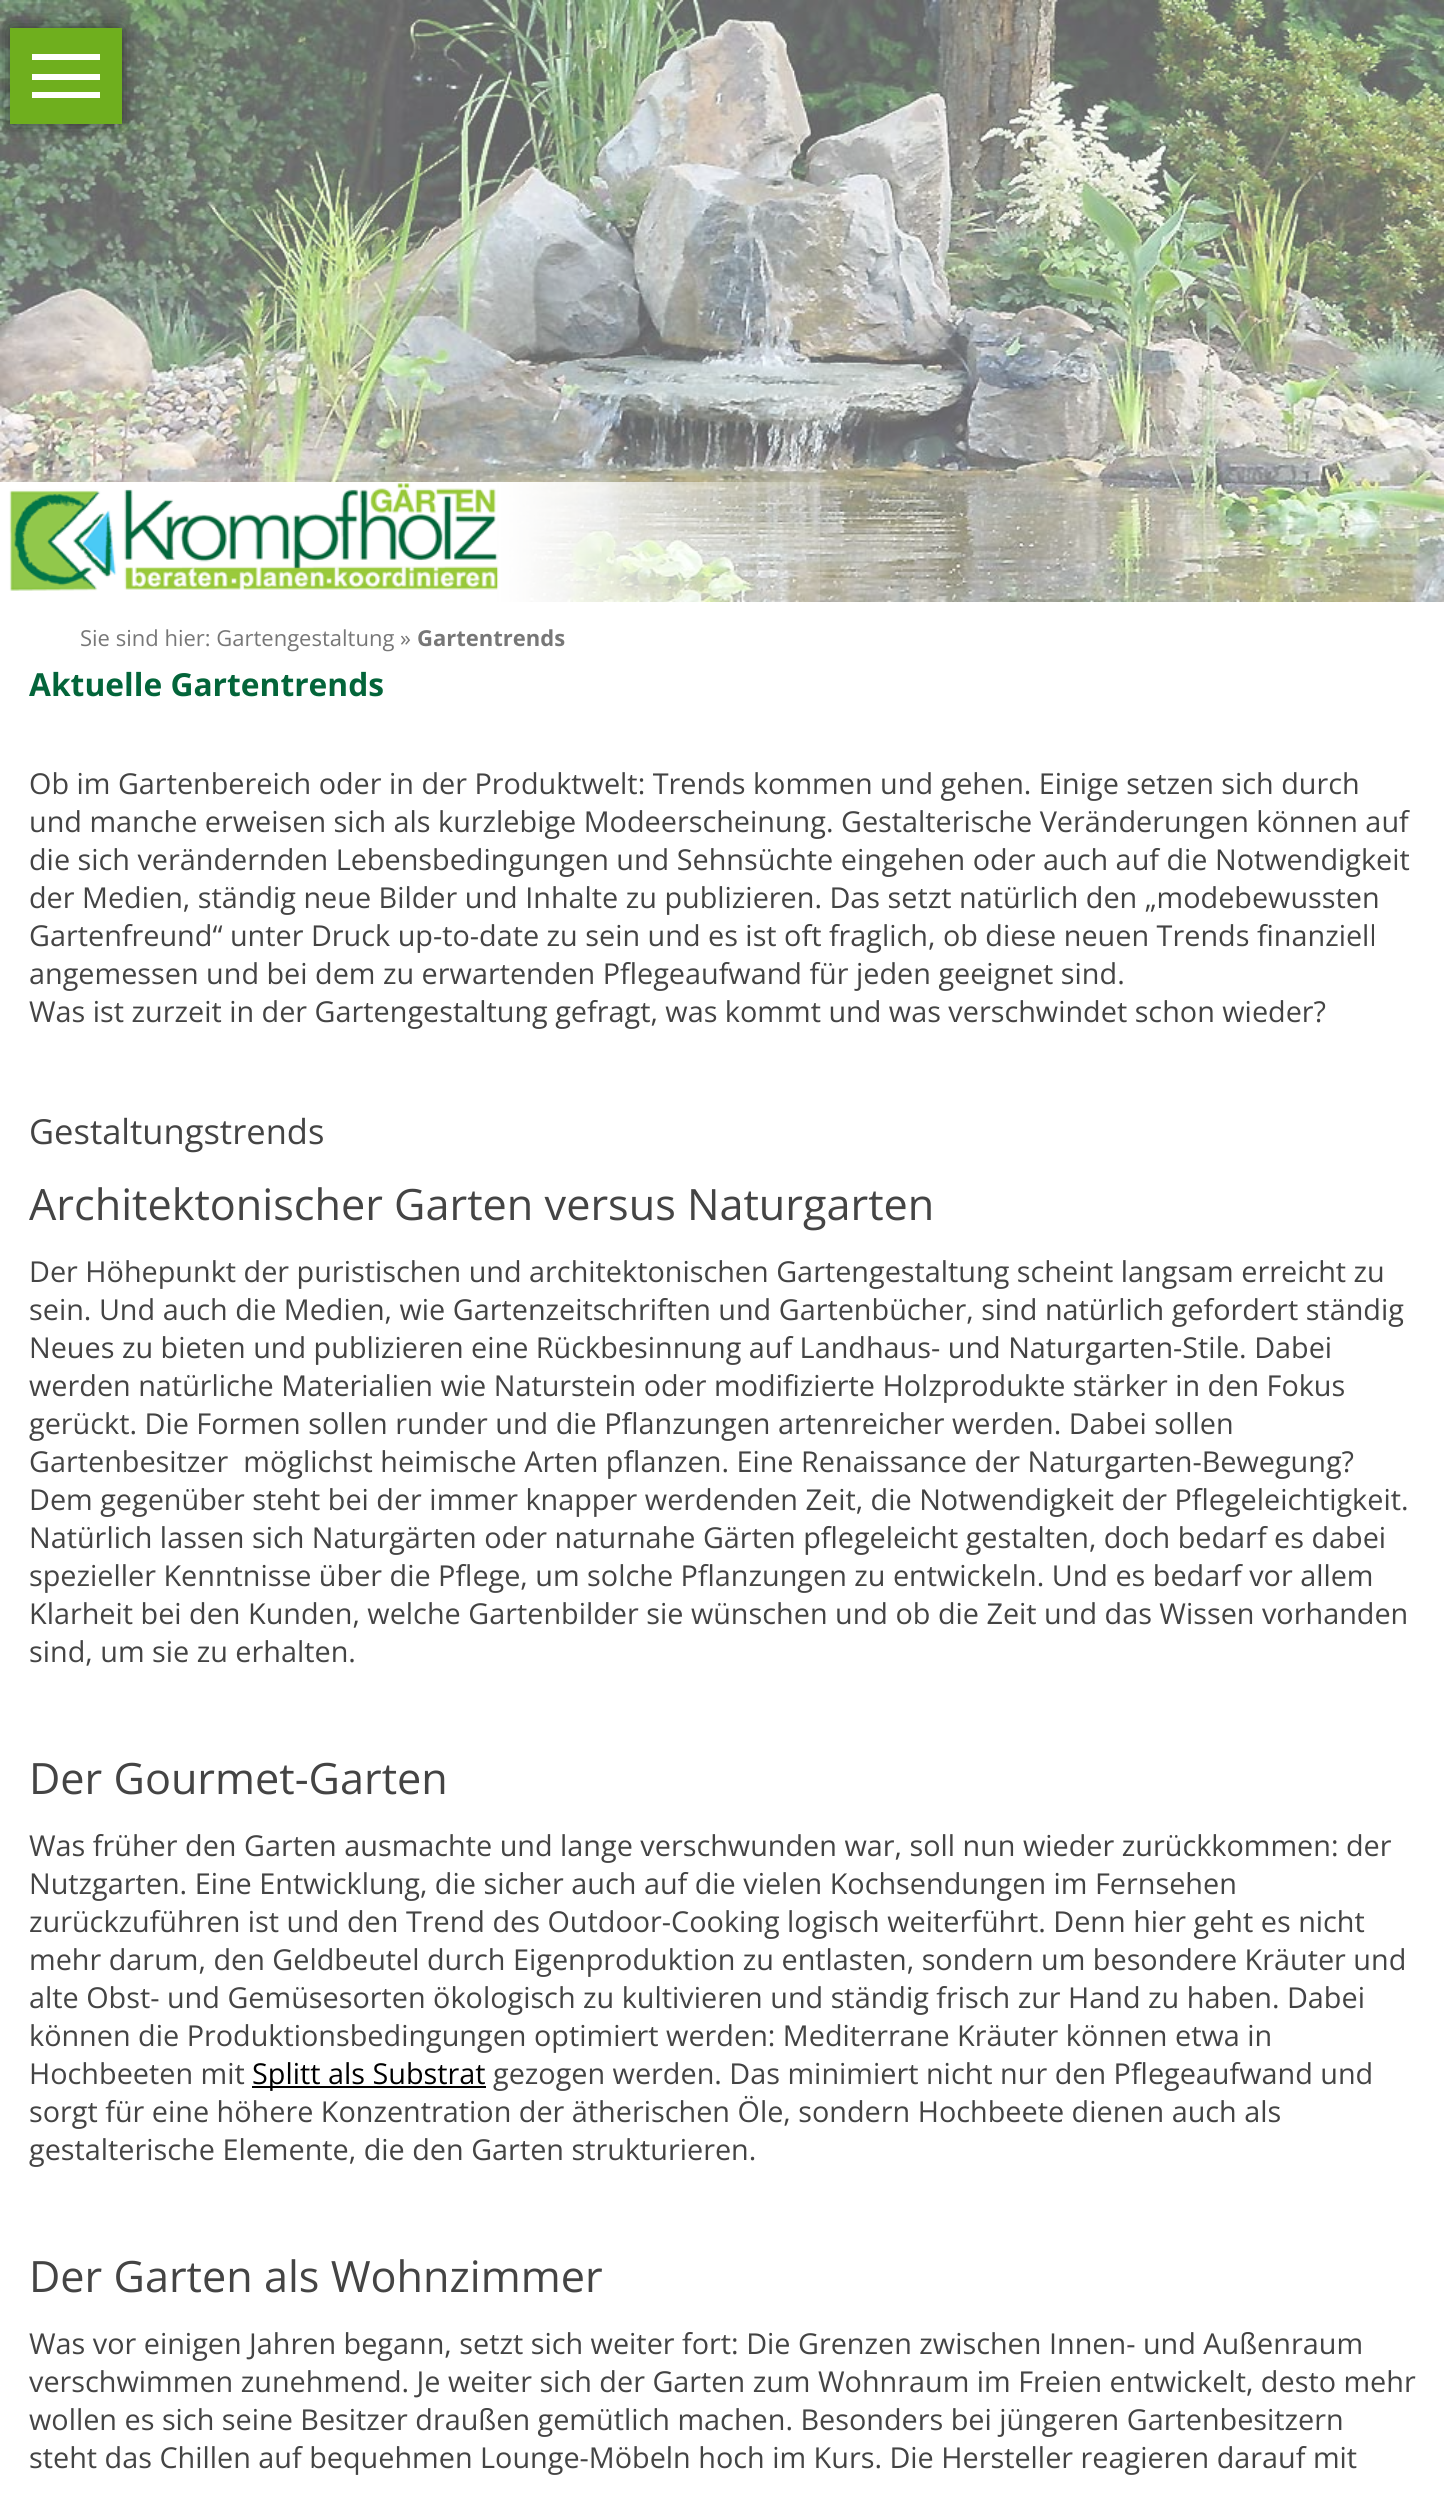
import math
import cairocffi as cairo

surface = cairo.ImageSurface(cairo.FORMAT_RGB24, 1444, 2494)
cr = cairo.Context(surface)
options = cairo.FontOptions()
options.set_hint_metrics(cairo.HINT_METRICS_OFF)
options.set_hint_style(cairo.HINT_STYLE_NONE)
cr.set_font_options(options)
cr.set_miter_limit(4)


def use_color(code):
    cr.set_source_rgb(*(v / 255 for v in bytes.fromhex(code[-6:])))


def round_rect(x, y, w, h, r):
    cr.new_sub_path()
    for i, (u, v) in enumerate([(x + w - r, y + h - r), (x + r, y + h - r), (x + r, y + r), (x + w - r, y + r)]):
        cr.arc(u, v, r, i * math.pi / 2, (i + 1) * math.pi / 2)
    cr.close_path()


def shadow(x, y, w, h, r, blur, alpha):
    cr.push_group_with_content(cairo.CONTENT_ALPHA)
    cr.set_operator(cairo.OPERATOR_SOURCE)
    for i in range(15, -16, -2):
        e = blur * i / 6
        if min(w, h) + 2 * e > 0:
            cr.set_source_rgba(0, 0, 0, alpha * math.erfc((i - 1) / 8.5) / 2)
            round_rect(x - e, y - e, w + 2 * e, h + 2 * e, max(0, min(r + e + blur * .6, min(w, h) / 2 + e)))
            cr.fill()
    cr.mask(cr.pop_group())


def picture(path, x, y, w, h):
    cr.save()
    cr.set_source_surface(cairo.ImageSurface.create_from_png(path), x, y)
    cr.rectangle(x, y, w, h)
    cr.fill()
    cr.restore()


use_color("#ffffff")
cr.paint()
picture("img1.png", 0, 0, 1444, 602)
use_color("#000000")
shadow(10, 28, 112, 96, 0, 10, 0.6)
use_color("#6faf1e")
cr.rectangle(10, 28, 112, 96)
cr.fill()
use_color("#ffffff")
cr.rectangle(32, 54, 68, 6)
cr.fill()
cr.rectangle(32, 74, 68, 6)
cr.fill()
cr.rectangle(32, 92, 68, 6)
cr.fill()
picture("img2.png", 0, 482, 820, 120)
cr.select_font_face("Open Sans")
cr.set_font_size(22)
use_color("#777777")
cr.move_to(80, 646)
cr.show_text("Sie sind hier: Gartengestaltung »")
cr.select_font_face("Open Sans", cairo.FONT_SLANT_NORMAL, cairo.FONT_WEIGHT_BOLD)
cr.move_to(417, 646)
cr.show_text("Gartentrends")
cr.set_font_size(31.75)
use_color("#03653a")
cr.move_to(29, 696)
cr.show_text("Aktuelle Gartentrends")
cr.select_font_face("Open Sans")
cr.set_font_size(28.8)
use_color("#444444")
cr.move_to(29, 794)
cr.show_text("Ob im Gartenbereich oder in der Produktwelt: Trends kommen und gehen. Einige setzen sich durch")
cr.move_to(29, 832)
cr.show_text("und manche erweisen sich als kurzlebige Modeerscheinung. Gestalterische Veränderungen können auf")
cr.move_to(29, 870)
cr.show_text("die sich verändernden Lebensbedingungen und Sehnsüchte eingehen oder auch auf die Notwendigkeit")
cr.move_to(29, 908)
cr.show_text("der Medien, ständig neue Bilder und Inhalte zu publizieren. Das setzt natürlich den „modebewussten")
cr.move_to(29, 946)
cr.show_text("Gartenfreund“ unter Druck up-to-date zu sein und es ist oft fraglich, ob diese neuen Trends finanziell")
cr.move_to(29, 984)
cr.show_text("angemessen und bei dem zu erwartenden Pflegeaufwand für jeden geeignet sind.")
cr.move_to(29, 1022)
cr.show_text("Was ist zurzeit in der Gartengestaltung gefragt, was kommt und was verschwindet schon wieder?")
cr.set_font_size(34.5)
cr.move_to(29, 1144)
cr.show_text("Gestaltungstrends")
cr.set_font_size(43.2)
cr.move_to(29, 1220)
cr.show_text("Architektonischer Garten versus Naturgarten")
cr.set_font_size(28.8)
cr.move_to(29, 1282)
cr.show_text("Der Höhepunkt der puristischen und architektonischen Gartengestaltung scheint langsam erreicht zu")
cr.move_to(29, 1320)
cr.show_text("sein. Und auch die Medien, wie Gartenzeitschriften und Gartenbücher, sind natürlich gefordert ständig")
cr.move_to(29, 1358)
cr.show_text("Neues zu bieten und publizieren eine Rückbesinnung auf Landhaus- und Naturgarten-Stile. Dabei")
cr.move_to(29, 1396)
cr.show_text("werden natürliche Materialien wie Naturstein oder modifizierte Holzprodukte stärker in den Fokus")
cr.move_to(29, 1434)
cr.show_text("gerückt. Die Formen sollen runder und die Pflanzungen artenreicher werden. Dabei sollen")
cr.move_to(29, 1472)
cr.show_text("Gartenbesitzer  möglichst heimische Arten pflanzen. Eine Renaissance der Naturgarten-Bewegung?")
cr.move_to(29, 1510)
cr.show_text("Dem gegenüber steht bei der immer knapper werdenden Zeit, die Notwendigkeit der Pflegeleichtigkeit.")
cr.move_to(29, 1548)
cr.show_text("Natürlich lassen sich Naturgärten oder naturnahe Gärten pflegeleicht gestalten, doch bedarf es dabei")
cr.move_to(29, 1586)
cr.show_text("spezieller Kenntnisse über die Pflege, um solche Pflanzungen zu entwickeln. Und es bedarf vor allem")
cr.move_to(29, 1624)
cr.show_text("Klarheit bei den Kunden, welche Gartenbilder sie wünschen und ob die Zeit und das Wissen vorhanden")
cr.move_to(29, 1662)
cr.show_text("sind, um sie zu erhalten.")
cr.set_font_size(43.2)
cr.move_to(29, 1794)
cr.show_text("Der Gourmet-Garten")
cr.set_font_size(28.8)
cr.move_to(29, 1856)
cr.show_text("Was früher den Garten ausmachte und lange verschwunden war, soll nun wieder zurückkommen: der")
cr.move_to(29, 1894)
cr.show_text("Nutzgarten. Eine Entwicklung, die sicher auch auf die vielen Kochsendungen im Fernsehen")
cr.move_to(29, 1932)
cr.show_text("zurückzuführen ist und den Trend des Outdoor-Cooking logisch weiterführt. Denn hier geht es nicht")
cr.move_to(29, 1970)
cr.show_text("mehr darum, den Geldbeutel durch Eigenproduktion zu entlasten, sondern um besondere Kräuter und")
cr.move_to(29, 2008)
cr.show_text("alte Obst- und Gemüsesorten ökologisch zu kultivieren und ständig frisch zur Hand zu haben. Dabei")
cr.move_to(29, 2046)
cr.show_text("können die Produktionsbedingungen optimiert werden: Mediterrane Kräuter können etwa in")
cr.move_to(29, 2084)
cr.show_text("Hochbeeten mit")
use_color("#000000")
cr.rectangle(252, 2086, 234, 2)
cr.fill()
cr.move_to(252, 2084)
cr.show_text("Splitt als Substrat")
use_color("#444444")
cr.move_to(493, 2084)
cr.show_text("gezogen werden. Das minimiert nicht nur den Pflegeaufwand und")
cr.move_to(29, 2122)
cr.show_text("sorgt für eine höhere Konzentration der ätherischen Öle, sondern Hochbeete dienen auch als")
cr.move_to(29, 2160)
cr.show_text("gestalterische Elemente, die den Garten strukturieren.")
cr.set_font_size(43.2)
cr.move_to(29, 2292)
cr.show_text("Der Garten als Wohnzimmer")
cr.set_font_size(28.8)
cr.move_to(29, 2354)
cr.show_text("Was vor einigen Jahren begann, setzt sich weiter fort: Die Grenzen zwischen Innen- und Außenraum")
cr.move_to(29, 2392)
cr.show_text("verschwimmen zunehmend. Je weiter sich der Garten zum Wohnraum im Freien entwickelt, desto mehr")
cr.move_to(29, 2430)
cr.show_text("wollen es sich seine Besitzer draußen gemütlich machen. Besonders bei jüngeren Gartenbesitzern")
cr.move_to(29, 2468)
cr.show_text("steht das Chillen auf bequehmen Lounge-Möbeln hoch im Kurs. Die Hersteller reagieren darauf mit")
surface.write_to_png("result.png")
